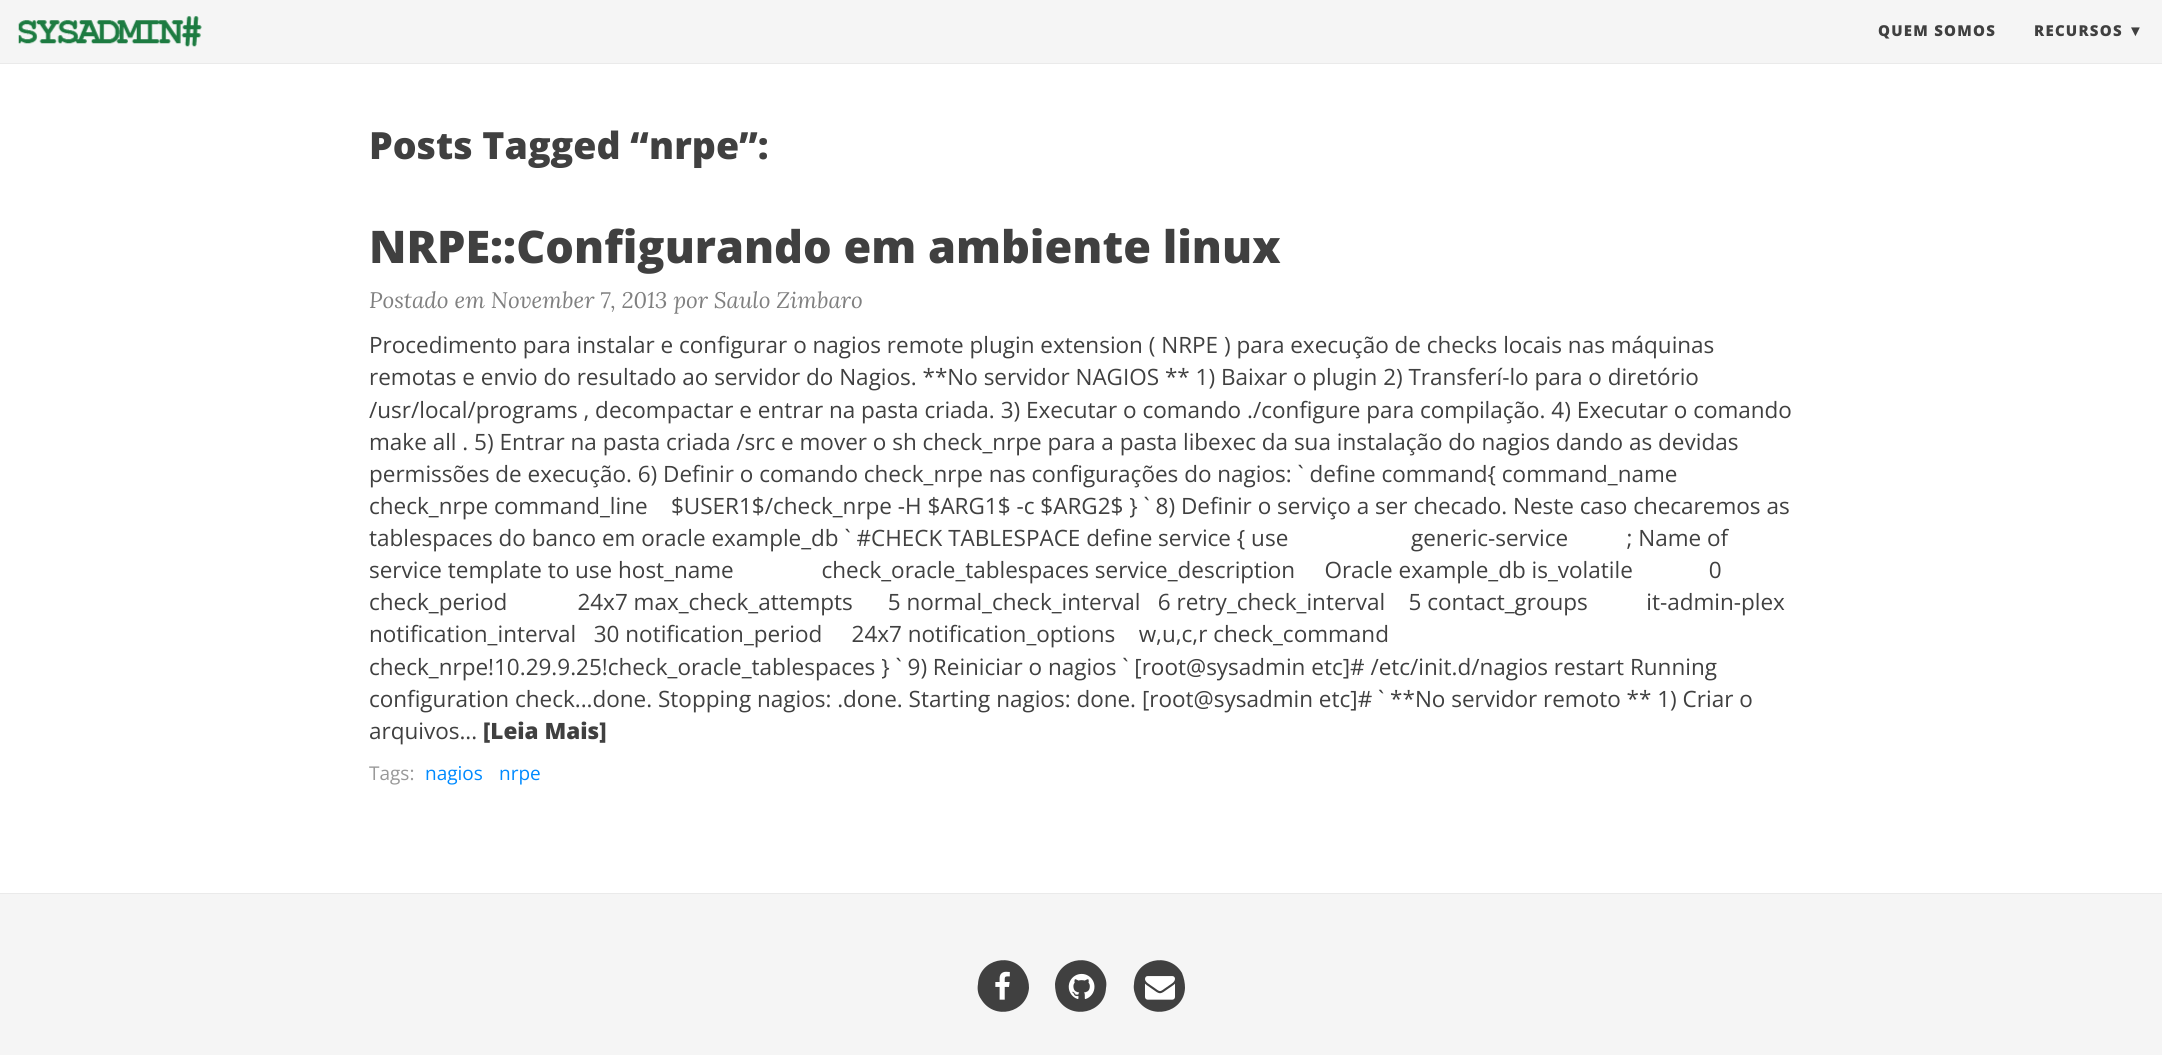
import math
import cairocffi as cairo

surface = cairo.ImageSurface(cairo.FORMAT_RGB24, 2162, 1055)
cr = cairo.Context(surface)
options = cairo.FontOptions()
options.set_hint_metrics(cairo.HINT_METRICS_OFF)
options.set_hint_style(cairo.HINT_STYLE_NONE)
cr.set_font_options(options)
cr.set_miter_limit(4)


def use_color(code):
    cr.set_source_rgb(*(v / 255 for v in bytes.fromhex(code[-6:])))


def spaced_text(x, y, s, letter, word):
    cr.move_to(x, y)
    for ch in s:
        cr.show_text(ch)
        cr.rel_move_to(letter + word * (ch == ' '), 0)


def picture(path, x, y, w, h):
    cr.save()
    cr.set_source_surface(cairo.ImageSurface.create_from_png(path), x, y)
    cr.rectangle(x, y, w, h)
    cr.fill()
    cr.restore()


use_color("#ffffff")
cr.paint()
use_color("#f5f5f5")
cr.rectangle(0, 0, 2162, 63)
cr.fill()
use_color("#eaeaea")
cr.rectangle(0, 63, 2162, 1)
cr.fill()
picture("img1.png", 18, 16, 184, 31)
cr.select_font_face("Open Sans ExtraBold")
cr.set_font_size(15)
use_color("#404040")
spaced_text(1878, 36, "QUEM SOMOS", 1.25, 0)
spaced_text(2034, 36, "RECURSOS", 1.25, 0)
cr.select_font_face("Liberation Sans", cairo.FONT_SLANT_NORMAL, cairo.FONT_WEIGHT_BOLD)
spaced_text(2128, 36, "▼", 1.25, 0)
cr.select_font_face("Open Sans ExtraBold")
cr.set_font_size(37.5)
cr.move_to(369, 159)
cr.show_text("Posts Tagged “nrpe”:")
cr.set_font_size(45)
cr.move_to(369, 263)
cr.show_text("NRPE::Configurando em ambiente linux")
cr.select_font_face("Lora", cairo.FONT_SLANT_ITALIC)
cr.set_font_size(22.5)
use_color("#808080")
cr.move_to(369, 308)
cr.show_text("Postado em November 7, 2013 por Saulo Zimbaro")
cr.select_font_face("Open Sans")
use_color("#404040")
cr.move_to(369, 353)
cr.show_text("Procedimento para instalar e configurar o nagios remote plugin extension ( NRPE ) para execução de checks locais nas máquinas")
cr.move_to(369, 385)
cr.show_text("remotas e envio do resultado ao servidor do Nagios. **No servidor NAGIOS ** 1) Baixar o plugin 2) Transferí-lo para o diretório")
cr.move_to(369, 418)
cr.show_text("/usr/local/programs , decompactar e entrar na pasta criada. 3) Executar o comando ./configure para compilação. 4) Executar o comando")
cr.move_to(369, 450)
cr.show_text("make all . 5) Entrar na pasta criada /src e mover o sh check_nrpe para a pasta libexec da sua instalação do nagios dando as devidas")
cr.move_to(369, 482)
cr.show_text("permissões de execução. 6) Definir o comando check_nrpe nas configurações do nagios: ` define command{ command_name")
cr.move_to(369, 514)
cr.show_text("check_nrpe command_line    $USER1$/check_nrpe -H $ARG1$ -c $ARG2$ } ` 8) Definir o serviço a ser checado. Neste caso checaremos as")
cr.move_to(369, 546)
cr.show_text("tablespaces do banco em oracle example_db ` #CHECK TABLESPACE define service { use                     generic-service          ; Name of")
cr.move_to(369, 578)
cr.show_text("service template to use host_name               check_oracle_tablespaces service_description     Oracle example_db is_volatile             0")
cr.move_to(369, 610)
cr.show_text("check_period            24x7 max_check_attempts      5 normal_check_interval   6 retry_check_interval    5 contact_groups          it-admin-plex")
cr.move_to(369, 642)
cr.show_text("notification_interval   30 notification_period     24x7 notification_options    w,u,c,r check_command")
cr.move_to(369, 675)
cr.show_text("check_nrpe!10.29.9.25!check_oracle_tablespaces } ` 9) Reiniciar o nagios ` [root@sysadmin etc]# /etc/init.d/nagios restart Running")
cr.move_to(369, 707)
cr.show_text("configuration check...done. Stopping nagios: .done. Starting nagios: done. [root@sysadmin etc]# ` **No servidor remoto ** 1) Criar o")
cr.move_to(369, 739)
cr.show_text("arquivos...")
cr.select_font_face("Open Sans ExtraBold")
cr.move_to(483, 739)
cr.show_text("[Leia Mais]")
cr.select_font_face("Open Sans")
cr.set_font_size(19)
use_color("#999999")
cr.move_to(369, 780)
cr.show_text("Tags:")
use_color("#008aff")
cr.move_to(425, 780)
cr.show_text("nagios")
cr.move_to(499, 780)
cr.show_text("nrpe")
use_color("#f5f5f5")
cr.rectangle(0, 894, 2162, 161)
cr.fill()
use_color("#eaeaea")
cr.rectangle(0, 893, 2162, 1)
cr.fill()
use_color("#404040")
cr.new_path()
cr.move_to(1025, 973)
cr.curve_to(1028, 978, 1029, 983, 1029, 988)
cr.curve_to(1027, 1013, 994, 1021, 981, 999)
cr.curve_to(978, 995, 977, 989, 978, 984)
cr.curve_to(979, 959, 1013, 951, 1025, 973)
cr.close_path()
cr.fill()
picture("img2.png", 995, 971, 15, 29)
cr.new_path()
cr.move_to(1103, 973)
cr.curve_to(1106, 978, 1107, 983, 1106, 988)
cr.curve_to(1105, 1013, 1071, 1021, 1058, 999)
cr.curve_to(1056, 995, 1055, 989, 1055, 984)
cr.curve_to(1057, 959, 1090, 951, 1103, 973)
cr.close_path()
cr.fill()
picture("img3.png", 1068, 973, 27, 26)
cr.new_path()
cr.move_to(1182, 973)
cr.curve_to(1184, 978, 1185, 983, 1185, 988)
cr.curve_to(1184, 1013, 1150, 1021, 1137, 999)
cr.curve_to(1135, 995, 1133, 989, 1134, 984)
cr.curve_to(1135, 959, 1169, 951, 1182, 973)
cr.close_path()
cr.fill()
picture("img4.png", 1145, 976, 30, 24)
surface.write_to_png("result.png")
